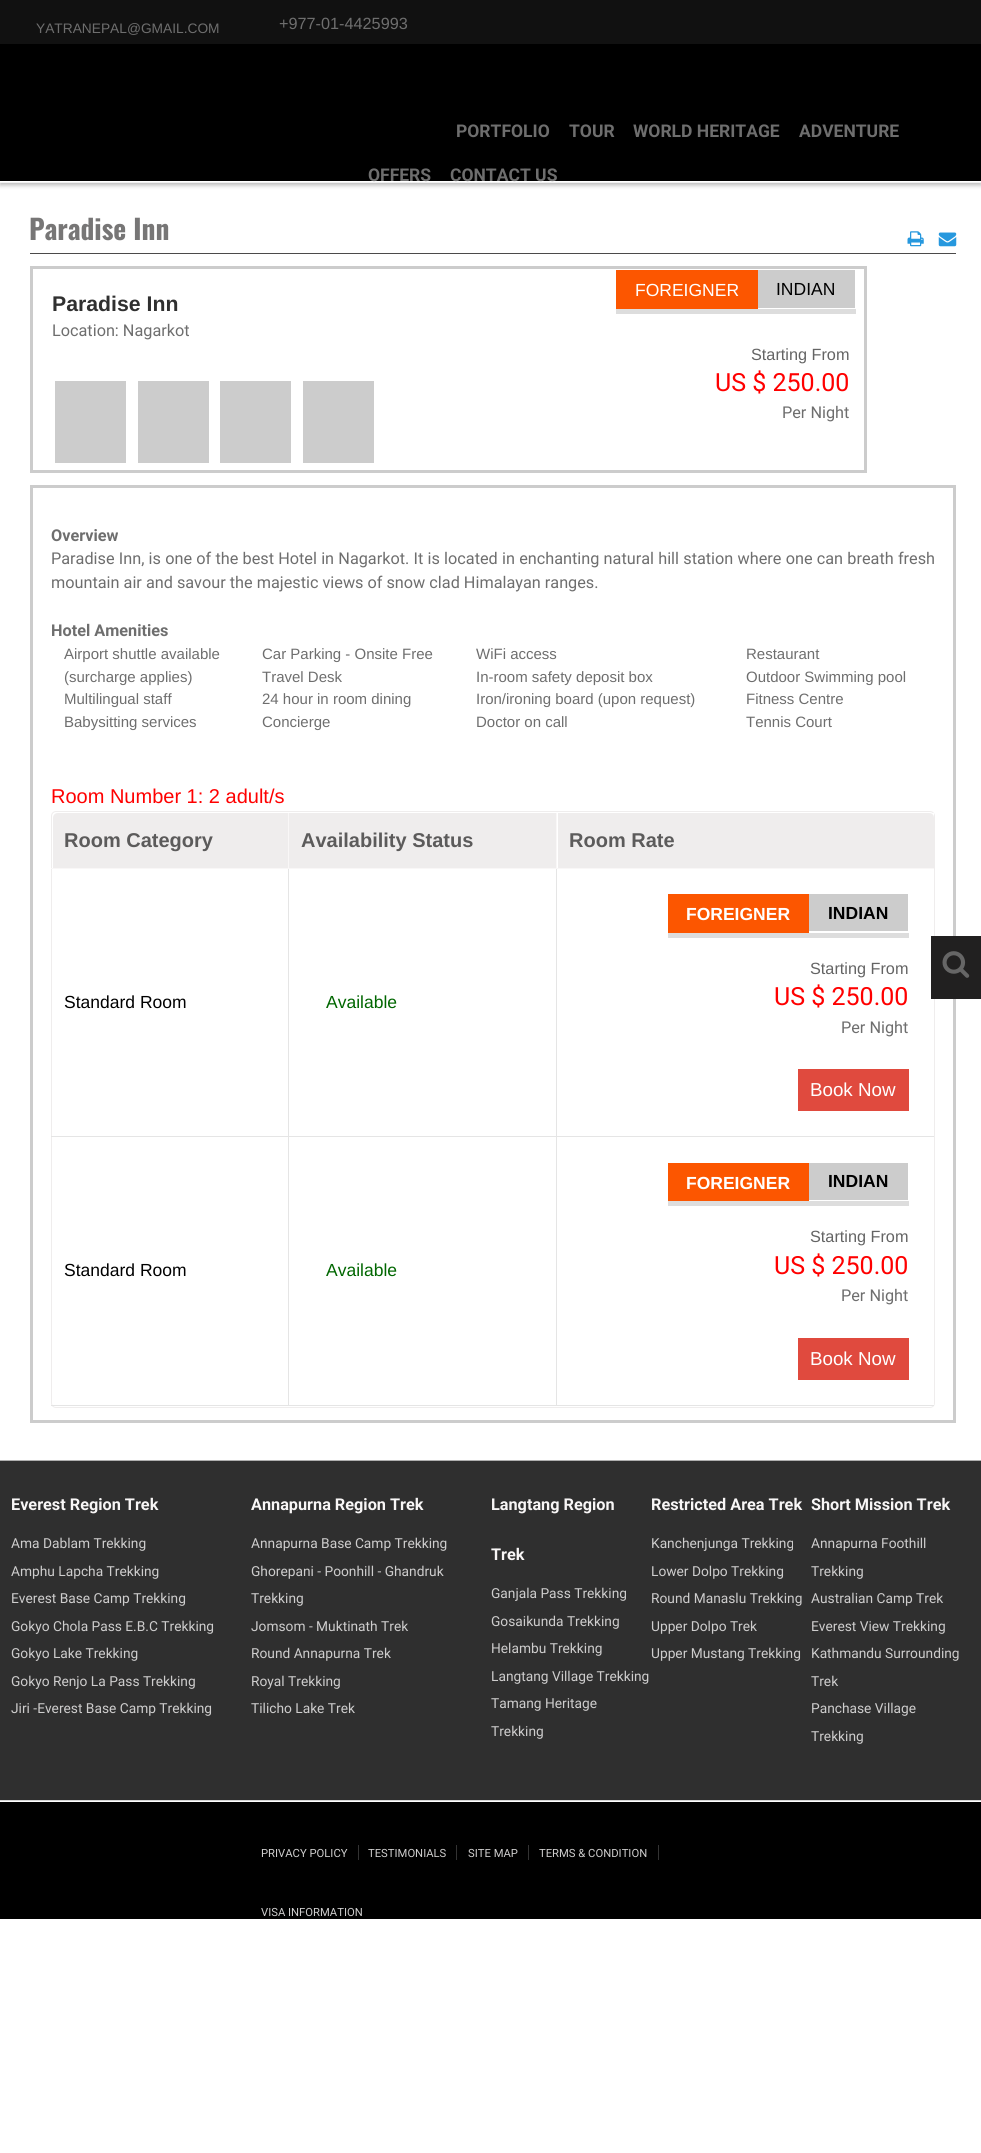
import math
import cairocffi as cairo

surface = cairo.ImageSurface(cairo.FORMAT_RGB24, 981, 2153)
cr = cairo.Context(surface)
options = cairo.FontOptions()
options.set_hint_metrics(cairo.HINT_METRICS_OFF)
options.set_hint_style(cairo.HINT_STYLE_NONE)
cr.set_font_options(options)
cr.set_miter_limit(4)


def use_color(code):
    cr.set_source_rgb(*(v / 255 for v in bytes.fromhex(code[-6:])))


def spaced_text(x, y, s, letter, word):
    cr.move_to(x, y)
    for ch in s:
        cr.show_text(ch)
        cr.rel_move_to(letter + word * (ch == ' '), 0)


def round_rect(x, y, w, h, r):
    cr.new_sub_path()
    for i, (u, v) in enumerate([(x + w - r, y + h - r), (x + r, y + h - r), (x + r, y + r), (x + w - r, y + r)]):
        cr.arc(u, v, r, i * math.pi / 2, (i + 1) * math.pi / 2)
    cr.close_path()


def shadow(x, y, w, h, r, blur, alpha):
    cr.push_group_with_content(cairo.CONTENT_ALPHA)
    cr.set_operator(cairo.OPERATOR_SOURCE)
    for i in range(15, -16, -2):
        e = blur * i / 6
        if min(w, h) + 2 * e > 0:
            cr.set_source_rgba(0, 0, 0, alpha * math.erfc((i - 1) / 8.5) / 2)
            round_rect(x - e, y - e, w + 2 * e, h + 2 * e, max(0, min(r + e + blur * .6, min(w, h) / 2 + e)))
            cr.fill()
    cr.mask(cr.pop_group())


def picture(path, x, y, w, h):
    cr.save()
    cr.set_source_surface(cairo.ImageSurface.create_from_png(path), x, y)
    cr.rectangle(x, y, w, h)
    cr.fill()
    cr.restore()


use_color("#ffffff")
cr.paint()
use_color("#000000")
shadow(0, 1, 981, 184, 0, 2.5, 0.3)
use_color("#f1f1f1")
cr.rectangle(0, 182, 981, 1)
cr.fill()
use_color("#ffffff")
cr.rectangle(0, 181, 981, 1)
cr.fill()
use_color("#111111")
cr.rectangle(0, 0, 981, 44)
cr.fill()
cr.select_font_face("Liberation Sans")
cr.set_font_size(13.75)
use_color("#6e6e6e")
cr.move_to(36, 33)
cr.show_text("YATRANEPAL@GMAIL.COM")
cr.set_font_size(16.25)
cr.move_to(279, 29)
cr.show_text("+977-01-4425993")
use_color("#000000")
cr.rectangle(0, 44, 981, 137)
cr.fill()
cr.select_font_face("Roboto", cairo.FONT_SLANT_NORMAL, cairo.FONT_WEIGHT_BOLD)
cr.set_font_size(17.5)
use_color("#6e6e6e")
cr.move_to(456, 137)
cr.show_text("PORTFOLIO")
cr.move_to(569, 137)
cr.show_text("TOUR")
cr.move_to(633, 137)
cr.show_text("WORLD HERITAGE")
cr.move_to(799, 137)
cr.show_text("ADVENTURE")
cr.move_to(368, 181)
cr.show_text("OFFERS")
cr.move_to(450, 181)
cr.show_text("CONTACT US")
cr.rectangle(31.5, 486.5, 923, 935)
use_color("#cccccc")
cr.set_line_width(3)
cr.stroke()
round_rect(51.5, 811.5, 883, 596, 4.5)
use_color("#efeded")
cr.set_line_width(1)
cr.stroke()
use_color("#212020")
cr.rectangle(931, 936, 50, 63)
cr.fill()
picture("img1.png", 942, 951, 28, 27)
use_color("#4b4a4a")
cr.rectangle(30, 253, 926, 1)
cr.fill()
cr.select_font_face("Oswald", cairo.FONT_SLANT_NORMAL, cairo.FONT_WEIGHT_BOLD)
cr.set_font_size(27.5)
use_color("#777676")
cr.move_to(29, 240)
cr.show_text("Paradise Inn")
picture("img2.png", 907, 231, 17, 16)
picture("img3.png", 938, 232, 19, 15)
use_color("#cccccc")
cr.rectangle(30, 266, 836, 3)
cr.fill()
cr.rectangle(864, 266, 3, 207)
cr.fill()
cr.rectangle(30, 470, 836, 3)
cr.fill()
cr.rectangle(30, 266, 3, 207)
cr.fill()
cr.select_font_face("Liberation Sans", cairo.FONT_SLANT_NORMAL, cairo.FONT_WEIGHT_BOLD)
cr.set_font_size(21.25)
use_color("#303030")
cr.move_to(52, 311)
cr.show_text("Paradise Inn")
cr.select_font_face("Roboto")
cr.set_font_size(16.25)
use_color("#6e6e6e")
cr.move_to(52, 336)
cr.show_text("Location: Nagarkot")
use_color("#cccccc")
cr.rectangle(55, 381, 71, 82)
cr.fill()
cr.rectangle(138, 381, 71, 82)
cr.fill()
cr.rectangle(220, 381, 71, 82)
cr.fill()
cr.rectangle(303, 381, 71, 82)
cr.fill()
use_color("#dddddd")
cr.rectangle(616, 309, 240, 5)
cr.fill()
use_color("#fc5600")
cr.rectangle(616, 270, 142, 39)
cr.fill()
cr.select_font_face("Liberation Sans")
cr.set_font_size(17.5)
use_color("#ffffff")
cr.move_to(635, 296)
cr.show_text("FOREIGNER")
use_color("#cccccc")
cr.rectangle(758, 270, 97, 38)
cr.fill()
use_color("#000000")
cr.move_to(776, 295)
cr.show_text("INDIAN")
cr.set_font_size(16.25)
use_color("#646464")
cr.move_to(751, 360)
cr.show_text("Starting From")
cr.select_font_face("Roboto")
cr.set_font_size(25)
use_color("#ff0000")
cr.move_to(715, 391)
cr.show_text("US $ 250.00")
cr.set_font_size(16.25)
use_color("#6e6e6e")
cr.move_to(782, 418)
cr.show_text("Per Night")
cr.select_font_face("Roboto", cairo.FONT_SLANT_NORMAL, cairo.FONT_WEIGHT_BOLD)
cr.move_to(51, 541)
cr.show_text("Overview")
cr.select_font_face("Roboto")
spaced_text(51, 564, "Paradise Inn, is one of the best Hotel in Nagarkot. It is located in enchanting natural hill station where one can breath fresh", 0, 0.2)
cr.move_to(51, 588)
cr.show_text("mountain air and savour the majestic views of snow clad Himalayan ranges.")
cr.select_font_face("Roboto", cairo.FONT_SLANT_NORMAL, cairo.FONT_WEIGHT_BOLD)
cr.move_to(51, 636)
cr.show_text("Hotel Amenities")
cr.select_font_face("Liberation Sans")
cr.set_font_size(15)
cr.move_to(64, 659)
cr.show_text("Airport shuttle available")
cr.move_to(64, 682)
cr.show_text("(surcharge applies)")
cr.move_to(64, 704)
cr.show_text("Multilingual staff")
cr.move_to(64, 727)
cr.show_text("Babysitting services")
cr.move_to(262, 659)
cr.show_text("Car Parking - Onsite Free")
cr.move_to(262, 682)
cr.show_text("Travel Desk")
cr.move_to(262, 704)
cr.show_text("24 hour in room dining")
cr.move_to(262, 727)
cr.show_text("Concierge")
cr.move_to(476, 659)
cr.show_text("WiFi access")
cr.move_to(476, 682)
cr.show_text("In-room safety deposit box")
cr.move_to(476, 704)
cr.show_text("Iron/ironing board (upon request)")
cr.move_to(476, 727)
cr.show_text("Doctor on call")
cr.move_to(746, 659)
cr.show_text("Restaurant")
cr.move_to(746, 682)
cr.show_text("Outdoor Swimming pool")
cr.move_to(746, 704)
cr.show_text("Fitness Centre")
cr.move_to(746, 727)
cr.show_text("Tennis Court")
cr.set_font_size(20)
use_color("#ff0000")
cr.move_to(51, 803)
cr.show_text("Room Number 1: 2 adult/s")
use_color("#ffffff")
cr.rectangle(933, 813, 1, 2)
cr.fill()
use_color("#efeded")
cr.new_path()
cr.move_to(58, 813)
cr.line_to(288, 813)
cr.line_to(288, 868)
cr.line_to(53, 868)
cr.line_to(53, 818)
cr.curve_to(53, 815, 55, 813, 58, 813)
cr.close_path()
cr.fill()
use_color("#e5e5e5")
cr.rectangle(51, 1405, 883, 1)
cr.fill()
cr.rectangle(556, 1136, 1, 270)
cr.fill()
cr.rectangle(556, 1136, 378, 1)
cr.fill()
cr.rectangle(556, 868, 1, 270)
cr.fill()
use_color("#f9f7f7")
cr.rectangle(556, 868, 378, 1)
cr.fill()
cr.rectangle(556, 813, 1, 56)
cr.fill()
use_color("#e5e5e5")
cr.rectangle(288, 1136, 1, 270)
cr.fill()
cr.rectangle(288, 1136, 270, 1)
cr.fill()
cr.rectangle(288, 868, 1, 270)
cr.fill()
use_color("#f9f7f7")
cr.rectangle(288, 868, 270, 1)
cr.fill()
cr.rectangle(288, 813, 1, 56)
cr.fill()
cr.rectangle(51, 868, 238, 1)
cr.fill()
cr.select_font_face("Liberation Sans", cairo.FONT_SLANT_NORMAL, cairo.FONT_WEIGHT_BOLD)
use_color("#5c5b5b")
cr.move_to(64, 847)
cr.show_text("Room Category")
use_color("#efeded")
cr.rectangle(289, 813, 267, 55)
cr.fill()
use_color("#5c5b5b")
cr.move_to(301, 847)
cr.show_text("Availability Status")
use_color("#efeded")
cr.new_path()
cr.move_to(558, 813)
cr.line_to(929, 813)
cr.curve_to(932, 813, 934, 815, 934, 818)
cr.line_to(934, 868)
cr.line_to(558, 868)
cr.close_path()
cr.fill()
use_color("#5c5b5b")
cr.move_to(569, 847)
cr.show_text("Room Rate")
use_color("#e5e5e5")
cr.rectangle(51, 1136, 238, 1)
cr.fill()
cr.select_font_face("Liberation Sans")
cr.set_font_size(17.5)
use_color("#000000")
cr.move_to(64, 1008)
cr.show_text("Standard Room")
use_color("#006600")
cr.move_to(326, 1008)
cr.show_text("Available")
use_color("#dddddd")
cr.rectangle(668, 933, 241, 5)
cr.fill()
use_color("#fc5600")
cr.rectangle(668, 894, 141, 39)
cr.fill()
cr.select_font_face("Liberation Sans", cairo.FONT_SLANT_NORMAL, cairo.FONT_WEIGHT_BOLD)
use_color("#ffffff")
cr.move_to(686, 920)
cr.show_text("FOREIGNER")
use_color("#cccccc")
cr.rectangle(809, 894, 99, 37)
cr.fill()
use_color("#000000")
cr.move_to(828, 919)
cr.show_text("INDIAN")
cr.select_font_face("Liberation Sans")
cr.set_font_size(16.25)
use_color("#646464")
cr.move_to(810, 974)
cr.show_text("Starting From")
cr.select_font_face("Roboto")
cr.set_font_size(25)
use_color("#ff0000")
cr.move_to(774, 1005)
cr.show_text("US $ 250.00")
cr.set_font_size(16.25)
use_color("#6e6e6e")
cr.move_to(841, 1033)
cr.show_text("Per Night")
use_color("#e04a3e")
cr.rectangle(798, 1069, 111, 42)
cr.fill()
cr.select_font_face("Liberation Sans")
cr.set_font_size(18.75)
use_color("#ffffff")
cr.move_to(810, 1096)
cr.show_text("Book Now")
cr.rectangle(933, 1404, 1, 1)
cr.fill()
cr.set_font_size(17.5)
use_color("#000000")
cr.move_to(64, 1276)
cr.show_text("Standard Room")
use_color("#006600")
cr.move_to(326, 1276)
cr.show_text("Available")
use_color("#dddddd")
cr.rectangle(668, 1201, 241, 5)
cr.fill()
use_color("#fc5600")
cr.rectangle(668, 1163, 141, 38)
cr.fill()
cr.select_font_face("Liberation Sans", cairo.FONT_SLANT_NORMAL, cairo.FONT_WEIGHT_BOLD)
use_color("#ffffff")
cr.move_to(686, 1189)
cr.show_text("FOREIGNER")
use_color("#cccccc")
cr.rectangle(809, 1163, 99, 37)
cr.fill()
use_color("#000000")
cr.move_to(828, 1187)
cr.show_text("INDIAN")
cr.select_font_face("Liberation Sans")
cr.set_font_size(16.25)
use_color("#646464")
cr.move_to(810, 1242)
cr.show_text("Starting From")
cr.select_font_face("Roboto")
cr.set_font_size(25)
use_color("#ff0000")
cr.move_to(774, 1274)
cr.show_text("US $ 250.00")
cr.set_font_size(16.25)
use_color("#6e6e6e")
cr.move_to(841, 1301)
cr.show_text("Per Night")
use_color("#e04a3e")
cr.rectangle(798, 1338, 111, 42)
cr.fill()
cr.select_font_face("Liberation Sans")
cr.set_font_size(18.75)
use_color("#ffffff")
cr.move_to(810, 1365)
cr.show_text("Book Now")
use_color("#2f2f2f")
cr.rectangle(0, 1461, 981, 339)
cr.fill()
use_color("#afafaf")
cr.rectangle(0, 1460, 981, 1)
cr.fill()
cr.select_font_face("Roboto", cairo.FONT_SLANT_NORMAL, cairo.FONT_WEIGHT_BOLD)
cr.set_font_size(16.25)
use_color("#f8f6f6")
cr.move_to(11, 1510)
cr.show_text("Everest Region Trek")
cr.select_font_face("Roboto")
cr.set_font_size(13.75)
use_color("#cecdcd")
cr.move_to(11, 1548)
cr.show_text("Ama Dablam Trekking")
cr.move_to(11, 1576)
cr.show_text("Amphu Lapcha Trekking")
cr.move_to(11, 1603)
cr.show_text("Everest Base Camp Trekking")
cr.move_to(11, 1631)
cr.show_text("Gokyo Chola Pass E.B.C Trekking")
cr.move_to(11, 1658)
cr.show_text("Gokyo Lake Trekking")
cr.move_to(11, 1686)
cr.show_text("Gokyo Renjo La Pass Trekking")
cr.move_to(11, 1713)
cr.show_text("Jiri -Everest Base Camp Trekking")
cr.select_font_face("Roboto", cairo.FONT_SLANT_NORMAL, cairo.FONT_WEIGHT_BOLD)
cr.set_font_size(16.25)
use_color("#f8f6f6")
cr.move_to(251, 1510)
cr.show_text("Annapurna Region Trek")
cr.select_font_face("Roboto")
cr.set_font_size(13.75)
use_color("#cecdcd")
cr.move_to(251, 1548)
cr.show_text("Annapurna Base Camp Trekking")
cr.move_to(251, 1576)
cr.show_text("Ghorepani - Poonhill - Ghandruk")
cr.move_to(251, 1603)
cr.show_text("Trekking")
cr.move_to(251, 1631)
cr.show_text("Jomsom - Muktinath Trek")
cr.move_to(251, 1658)
cr.show_text("Round Annapurna Trek")
cr.move_to(251, 1686)
cr.show_text("Royal Trekking")
cr.move_to(251, 1713)
cr.show_text("Tilicho Lake Trek")
cr.select_font_face("Roboto", cairo.FONT_SLANT_NORMAL, cairo.FONT_WEIGHT_BOLD)
cr.set_font_size(16.25)
use_color("#f8f6f6")
cr.move_to(491, 1510)
cr.show_text("Langtang Region")
cr.move_to(491, 1560)
cr.show_text("Trek")
cr.select_font_face("Roboto")
cr.set_font_size(13.75)
use_color("#cecdcd")
cr.move_to(491, 1598)
cr.show_text("Ganjala Pass Trekking")
cr.move_to(491, 1626)
cr.show_text("Gosaikunda Trekking")
cr.move_to(491, 1653)
cr.show_text("Helambu Trekking")
cr.move_to(491, 1681)
cr.show_text("Langtang Village Trekking")
cr.move_to(491, 1708)
cr.show_text("Tamang Heritage")
cr.move_to(491, 1736)
cr.show_text("Trekking")
cr.select_font_face("Roboto", cairo.FONT_SLANT_NORMAL, cairo.FONT_WEIGHT_BOLD)
cr.set_font_size(16.25)
use_color("#f8f6f6")
cr.move_to(651, 1510)
cr.show_text("Restricted Area Trek")
cr.select_font_face("Roboto")
cr.set_font_size(13.75)
use_color("#cecdcd")
cr.move_to(651, 1548)
cr.show_text("Kanchenjunga Trekking")
cr.move_to(651, 1576)
cr.show_text("Lower Dolpo Trekking")
cr.move_to(651, 1603)
cr.show_text("Round Manaslu Trekking")
cr.move_to(651, 1631)
cr.show_text("Upper Dolpo Trek")
cr.move_to(651, 1658)
cr.show_text("Upper Mustang Trekking")
cr.select_font_face("Roboto", cairo.FONT_SLANT_NORMAL, cairo.FONT_WEIGHT_BOLD)
cr.set_font_size(16.25)
use_color("#f8f6f6")
cr.move_to(811, 1510)
cr.show_text("Short Mission Trek")
cr.select_font_face("Roboto")
cr.set_font_size(13.75)
use_color("#cecdcd")
cr.move_to(811, 1548)
cr.show_text("Annapurna Foothill")
cr.move_to(811, 1576)
cr.show_text("Trekking")
cr.move_to(811, 1603)
cr.show_text("Australian Camp Trek")
cr.move_to(811, 1631)
cr.show_text("Everest View Trekking")
cr.move_to(811, 1658)
cr.show_text("Kathmandu Surrounding")
cr.move_to(811, 1686)
cr.show_text("Trek")
cr.move_to(811, 1713)
cr.show_text("Panchase Village")
cr.move_to(811, 1741)
cr.show_text("Trekking")
use_color("#000000")
cr.rectangle(0, 1802, 981, 117)
cr.fill()
use_color("#d5d5d5")
cr.rectangle(0, 1800, 981, 1)
cr.fill()
use_color("#333333")
cr.rectangle(358, 1845, 1, 15)
cr.fill()
cr.set_font_size(11.25)
use_color("#cecdcd")
cr.move_to(261, 1857)
cr.show_text("PRIVACY POLICY")
use_color("#333333")
cr.rectangle(456, 1845, 1, 15)
cr.fill()
use_color("#cecdcd")
cr.move_to(368, 1857)
cr.show_text("TESTIMONIALS")
use_color("#333333")
cr.rectangle(528, 1845, 1, 15)
cr.fill()
use_color("#cecdcd")
cr.move_to(468, 1857)
cr.show_text("SITE MAP")
use_color("#333333")
cr.rectangle(658, 1845, 1, 15)
cr.fill()
use_color("#cecdcd")
cr.move_to(539, 1857)
cr.show_text("TERMS & CONDITION")
cr.move_to(261, 1916)
cr.show_text("VISA INFORMATION")
surface.write_to_png("result.png")
